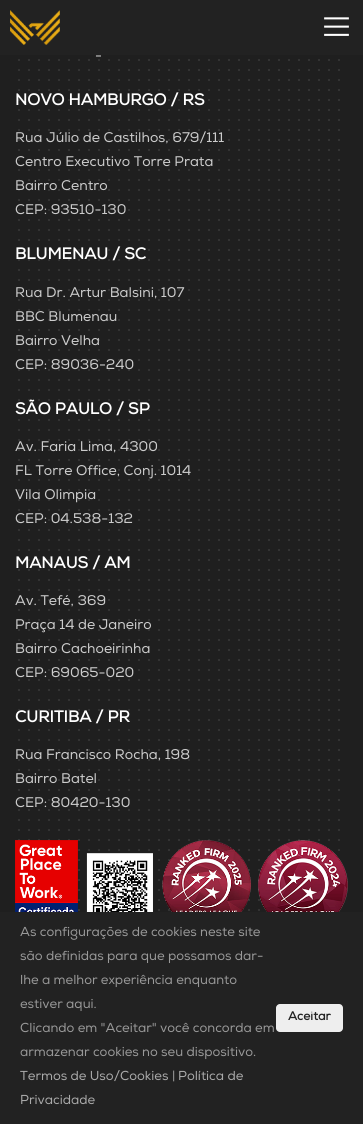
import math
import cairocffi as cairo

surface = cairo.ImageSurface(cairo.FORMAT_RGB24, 363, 1124)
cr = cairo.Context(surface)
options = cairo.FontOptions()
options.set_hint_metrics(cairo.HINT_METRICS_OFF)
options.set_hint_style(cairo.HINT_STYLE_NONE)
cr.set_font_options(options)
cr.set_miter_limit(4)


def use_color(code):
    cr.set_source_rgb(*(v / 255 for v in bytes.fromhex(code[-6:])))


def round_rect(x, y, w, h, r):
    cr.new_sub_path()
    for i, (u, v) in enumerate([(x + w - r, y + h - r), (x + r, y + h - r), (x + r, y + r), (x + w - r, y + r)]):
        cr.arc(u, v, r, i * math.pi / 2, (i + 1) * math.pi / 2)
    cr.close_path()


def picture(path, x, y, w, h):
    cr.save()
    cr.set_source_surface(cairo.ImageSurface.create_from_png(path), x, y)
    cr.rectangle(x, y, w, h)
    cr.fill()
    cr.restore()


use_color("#1f1f1f")
cr.paint()
use_color("#222222")
cr.rectangle(0, 0, 363, 55)
cr.fill()
picture("img1.png", 10, 10, 50, 35)
picture("img2.png", 324, 17, 25, 19)
cr.select_font_face("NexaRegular")
cr.set_font_size(14)
use_color("#cccccc")
cr.move_to(95, 60)
cr.show_text("-")
picture("img4.png", 18, 59, 322, 852)
cr.select_font_face("NexaRegular", cairo.FONT_SLANT_NORMAL, cairo.FONT_WEIGHT_BOLD)
cr.set_font_size(16)
use_color("#ffffff")
cr.move_to(15, 105)
cr.show_text("NOVO HAMBURGO / RS")
cr.select_font_face("NexaRegular")
cr.set_font_size(14)
use_color("#cccccc")
cr.move_to(15, 142)
cr.show_text("Rua Júlio de Castilhos, 679/111")
cr.move_to(15, 166)
cr.show_text("Centro Executivo Torre Prata")
cr.move_to(15, 190)
cr.show_text("Bairro Centro")
cr.move_to(15, 214)
cr.show_text("CEP: 93510-130")
cr.select_font_face("NexaRegular", cairo.FONT_SLANT_NORMAL, cairo.FONT_WEIGHT_BOLD)
cr.set_font_size(16)
use_color("#ffffff")
cr.move_to(15, 259)
cr.show_text("BLUMENAU / SC")
cr.select_font_face("NexaRegular")
cr.set_font_size(14)
use_color("#cccccc")
cr.move_to(15, 297)
cr.show_text("Rua Dr. Artur Balsini, 107")
cr.move_to(15, 321)
cr.show_text("BBC Blumenau")
cr.move_to(15, 345)
cr.show_text("Bairro Velha")
cr.move_to(15, 369)
cr.show_text("CEP: 89036-240")
cr.select_font_face("NexaRegular", cairo.FONT_SLANT_NORMAL, cairo.FONT_WEIGHT_BOLD)
cr.set_font_size(16)
use_color("#ffffff")
cr.move_to(15, 414)
cr.show_text("SÃO PAULO / SP")
cr.select_font_face("NexaRegular")
cr.set_font_size(14)
use_color("#cccccc")
cr.move_to(15, 451)
cr.show_text("Av. Faria Lima, 4300")
cr.move_to(15, 475)
cr.show_text("FL Torre Office, Conj. 1014")
cr.move_to(15, 499)
cr.show_text("Vila Olimpia")
cr.move_to(15, 523)
cr.show_text("CEP: 04.538-132")
cr.select_font_face("NexaRegular", cairo.FONT_SLANT_NORMAL, cairo.FONT_WEIGHT_BOLD)
cr.set_font_size(16)
use_color("#ffffff")
cr.move_to(15, 568)
cr.show_text("MANAUS / AM")
cr.select_font_face("NexaRegular")
cr.set_font_size(14)
use_color("#cccccc")
cr.move_to(15, 605)
cr.show_text("Av. Tefé, 369")
cr.move_to(15, 629)
cr.show_text("Praça 14 de Janeiro")
cr.move_to(15, 653)
cr.show_text("Bairro Cachoeirinha")
cr.move_to(15, 677)
cr.show_text("CEP: 69065-020")
cr.select_font_face("NexaRegular", cairo.FONT_SLANT_NORMAL, cairo.FONT_WEIGHT_BOLD)
cr.set_font_size(16)
use_color("#ffffff")
cr.move_to(15, 722)
cr.show_text("CURITIBA / PR")
cr.select_font_face("NexaRegular")
cr.set_font_size(14)
use_color("#cccccc")
cr.move_to(15, 759)
cr.show_text("Rua Francisco Rocha, 198")
cr.move_to(15, 783)
cr.show_text("Bairro Batel")
cr.move_to(15, 807)
cr.show_text("CEP: 80420-130")
picture("img3.png", 15, 840, 333, 72)
use_color("#222222")
cr.rectangle(0, 912, 363, 212)
cr.fill()
cr.set_font_size(13)
use_color("#999999")
cr.move_to(20, 936)
cr.show_text("As configurações de cookies neste site")
cr.move_to(20, 960)
cr.show_text("são definidas para que possamos dar-")
cr.move_to(20, 984)
cr.show_text("lhe a melhor experiência enquanto")
cr.move_to(20, 1008)
cr.show_text("estiver aqui.")
cr.move_to(20, 1032)
cr.show_text("Clicando em \"Aceitar\" você concorda em")
cr.move_to(20, 1056)
cr.show_text("armazenar cookies no seu dispositivo.")
use_color("#aaaaaa")
cr.move_to(20, 1080)
cr.show_text("Termos de Uso/Cookies")
use_color("#999999")
cr.move_to(172, 1080)
cr.show_text("|")
use_color("#aaaaaa")
cr.move_to(178, 1080)
cr.show_text("Política de")
cr.move_to(20, 1104)
cr.show_text("Privacidade")
use_color("#eeeeee")
round_rect(276, 1004, 67, 28, 4)
cr.fill()
cr.select_font_face("NexaRegular", cairo.FONT_SLANT_NORMAL, cairo.FONT_WEIGHT_BOLD)
cr.set_font_size(12)
use_color("#222222")
cr.move_to(288, 1020)
cr.show_text("Aceitar")
surface.write_to_png("result.png")
